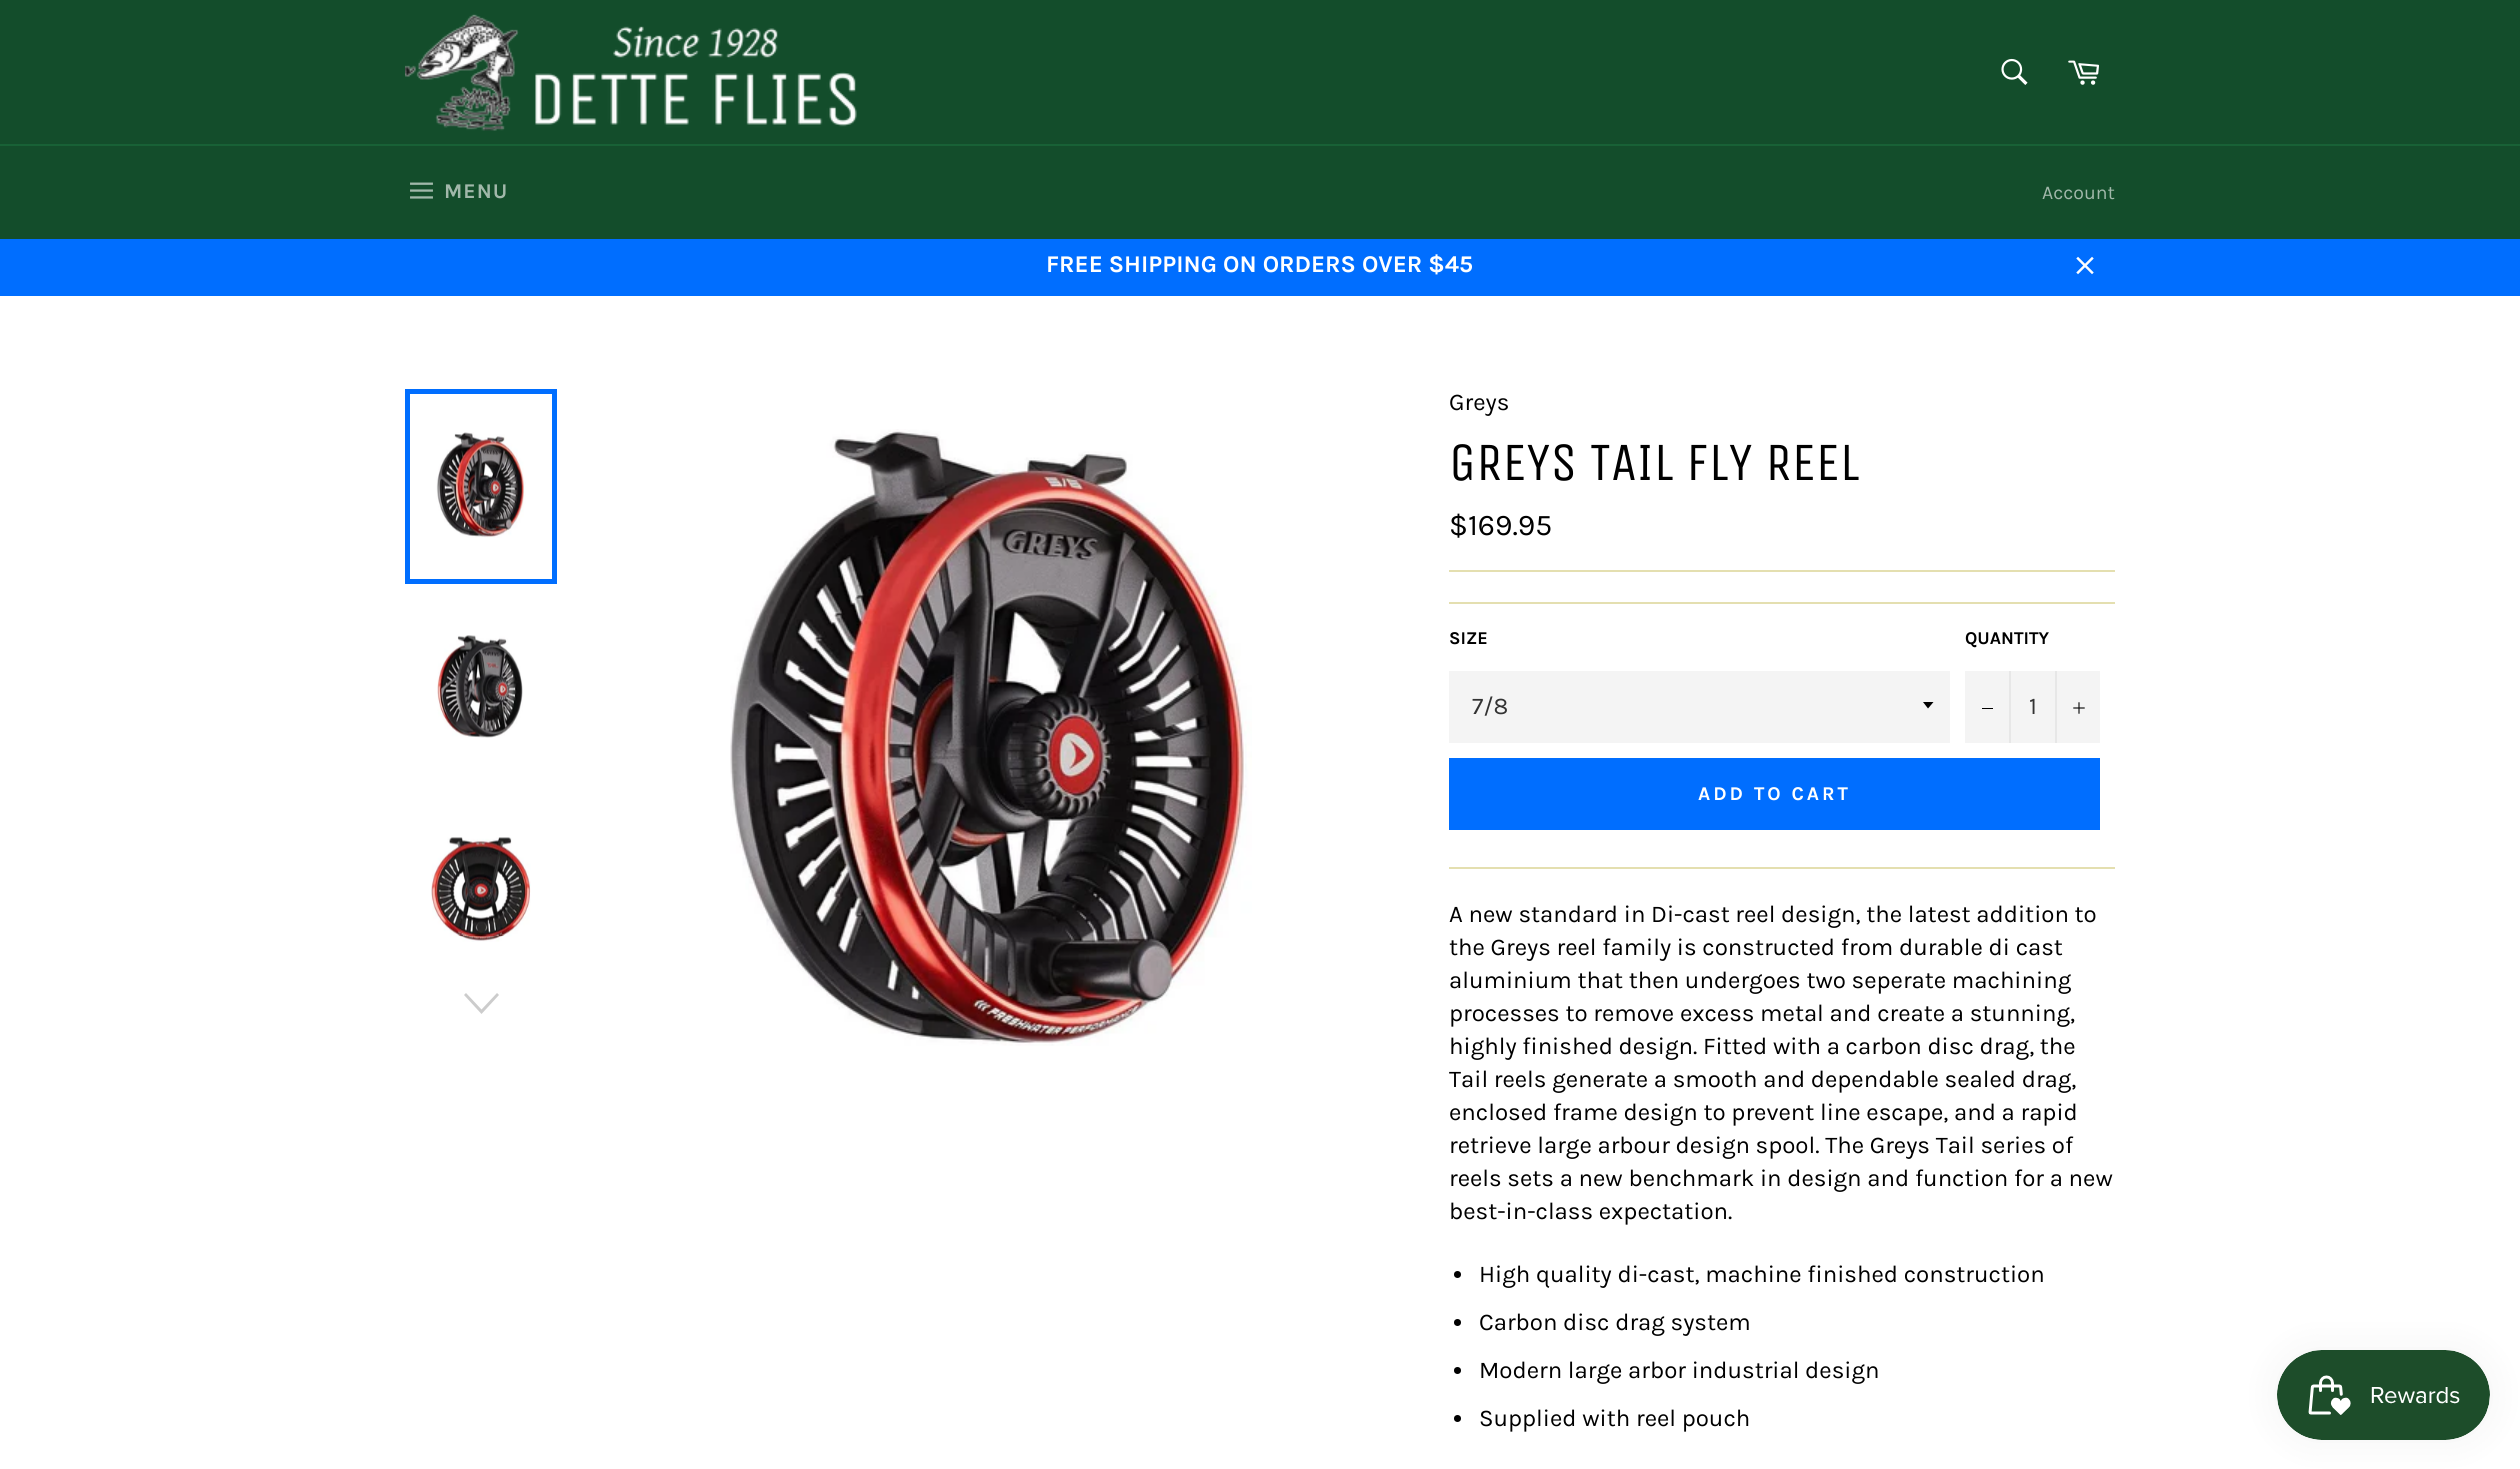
import math
import cairocffi as cairo

surface = cairo.ImageSurface(cairo.FORMAT_RGB24, 2520, 1469)
cr = cairo.Context(surface)
options = cairo.FontOptions()
options.set_hint_metrics(cairo.HINT_METRICS_OFF)
options.set_hint_style(cairo.HINT_STYLE_NONE)
cr.set_font_options(options)
cr.set_miter_limit(4)


def use_color(code):
    cr.set_source_rgb(*(v / 255 for v in bytes.fromhex(code[-6:])))


def spaced_text(x, y, s, letter, word):
    cr.move_to(x, y)
    for ch in s:
        cr.show_text(ch)
        cr.rel_move_to(letter + word * (ch == ' '), 0)


def round_rect(x, y, w, h, r):
    cr.new_sub_path()
    for i, (u, v) in enumerate([(x + w - r, y + h - r), (x + r, y + h - r), (x + r, y + r), (x + w - r, y + r)]):
        cr.arc(u, v, r, i * math.pi / 2, (i + 1) * math.pi / 2)
    cr.close_path()


def shadow(x, y, w, h, r, blur, alpha):
    cr.push_group_with_content(cairo.CONTENT_ALPHA)
    cr.set_operator(cairo.OPERATOR_SOURCE)
    for i in range(15, -16, -2):
        e = blur * i / 6
        if min(w, h) + 2 * e > 0:
            cr.set_source_rgba(0, 0, 0, alpha * math.erfc((i - 1) / 8.5) / 2)
            round_rect(x - e, y - e, w + 2 * e, h + 2 * e, max(0, min(r + e + blur * .6, min(w, h) / 2 + e)))
            cr.fill()
    cr.mask(cr.pop_group())


def picture(path, x, y, w, h):
    cr.save()
    cr.set_source_surface(cairo.ImageSurface.create_from_png(path), x, y)
    cr.rectangle(x, y, w, h)
    cr.fill()
    cr.restore()


use_color("#134d2b")
cr.paint()
picture("img1.png", 405, 14, 452, 117)
picture("img2.png", 2001, 58, 27, 27)
picture("img3.png", 2068, 60, 31, 25)
use_color("#186136")
cr.rectangle(0, 144, 2520, 2)
cr.fill()
picture("img4.png", 410, 182, 23, 17)
cr.select_font_face("Karla", cairo.FONT_SLANT_NORMAL, cairo.FONT_WEIGHT_BOLD)
cr.set_font_size(21)
use_color("#a1b8aa")
spaced_text(444, 198, "MENU", 1, 0)
cr.select_font_face("Karla")
cr.set_font_size(19.5)
cr.move_to(2042, 199)
cr.show_text("Account")
use_color("#006eff")
cr.rectangle(0, 239, 2520, 57)
cr.fill()
cr.select_font_face("Karla", cairo.FONT_SLANT_NORMAL, cairo.FONT_WEIGHT_BOLD)
cr.set_font_size(24)
use_color("#ffffff")
cr.move_to(1046, 272)
cr.show_text("FREE SHIPPING ON ORDERS OVER $45")
picture("img5.png", 2076, 256, 18, 19)
cr.rectangle(0, 296, 2520, 1173)
cr.fill()
picture("img6.png", 436, 432, 90, 106)
cr.rectangle(407.5, 391.5, 147, 190)
use_color("#006eff")
cr.set_line_width(5)
cr.stroke()
picture("img7.png", 437, 635, 86, 103)
picture("img8.png", 431, 837, 100, 105)
use_color("#cccccc")
cr.new_path()
cr.move_to(497, 993)
cr.line_to(499, 995)
cr.line_to(481.5, 1014)
cr.line_to(464, 995)
cr.line_to(466, 993)
cr.line_to(481.5, 1009.5)
cr.close_path()
cr.fill()
picture("img9.png", 730, 429, 522, 617)
cr.select_font_face("Karla")
use_color("#000000")
cr.move_to(1449, 410)
cr.show_text("Greys")
cr.select_font_face("Unica One")
cr.set_font_size(54)
cr.move_to(1449, 480)
cr.show_text("GREYS TAIL FLY REEL")
cr.select_font_face("Karla")
cr.set_font_size(30)
cr.move_to(1449, 535)
cr.show_text("$169.95")
use_color("#e4dfb0")
cr.rectangle(1449, 570, 666, 2)
cr.fill()
cr.rectangle(1449, 602, 666, 2)
cr.fill()
cr.select_font_face("Karla", cairo.FONT_SLANT_NORMAL, cairo.FONT_WEIGHT_BOLD)
cr.set_font_size(18)
use_color("#000000")
cr.move_to(1449, 644)
cr.show_text("SIZE")
use_color("#f4f4f4")
cr.rectangle(1449, 671, 501, 72)
cr.fill()
use_color("#000000")
cr.new_path()
cr.move_to(1923, 702)
cr.line_to(1928, 708.5)
cr.line_to(1933.5, 702)
cr.close_path()
cr.fill()
cr.select_font_face("Karla")
cr.set_font_size(24)
use_color("#333333")
cr.move_to(1472, 714)
cr.show_text("7/8")
cr.select_font_face("Karla", cairo.FONT_SLANT_NORMAL, cairo.FONT_WEIGHT_BOLD)
cr.set_font_size(18)
use_color("#000000")
cr.move_to(1965, 644)
cr.show_text("QUANTITY")
use_color("#f4f4f4")
cr.rectangle(1965, 671, 135, 72)
cr.fill()
use_color("#e7e7e7")
cr.rectangle(2009, 671, 2, 72)
cr.fill()
use_color("#000000")
cr.rectangle(1982, 708, 11, 1)
cr.fill()
cr.select_font_face("Karla")
cr.set_font_size(24)
use_color("#333333")
cr.move_to(2029, 714)
cr.show_text("1")
use_color("#e7e7e7")
cr.rectangle(2055, 671, 2, 72)
cr.fill()
picture("img10.png", 2073, 702, 12, 12)
use_color("#006eff")
cr.rectangle(1449, 758, 651, 72)
cr.fill()
cr.select_font_face("Karla", cairo.FONT_SLANT_NORMAL, cairo.FONT_WEIGHT_BOLD)
cr.set_font_size(19.5)
use_color("#ffffff")
spaced_text(1698, 800, "ADD TO CART", 3, 0)
use_color("#e4dfb0")
cr.rectangle(1449, 867, 666, 2)
cr.fill()
cr.select_font_face("Karla")
cr.set_font_size(24)
use_color("#000000")
cr.move_to(1449, 922)
cr.show_text("A new standard in Di-cast reel design, the latest addition to")
cr.move_to(1449, 955)
cr.show_text("the Greys reel family is constructed from durable di cast")
cr.move_to(1449, 988)
cr.show_text("aluminium that then undergoes two seperate machining")
cr.move_to(1449, 1021)
cr.show_text("processes to remove excess metal and create a stunning,")
cr.move_to(1449, 1054)
cr.show_text("highly finished design. Fitted with a carbon disc drag, the")
cr.move_to(1449, 1087)
cr.show_text("Tail reels generate a smooth and dependable sealed drag,")
cr.move_to(1449, 1120)
cr.show_text("enclosed frame design to prevent line escape, and a rapid")
cr.move_to(1449, 1153)
cr.show_text("retrieve large arbour design spool. The Greys Tail series of")
cr.move_to(1449, 1186)
cr.show_text("reels sets a new benchmark in design and function for a new")
cr.move_to(1449, 1219)
cr.show_text("best-in-class expectation.")
cr.new_path()
cr.arc(1457.5, 1274.5, 3.5, 0, 2 * math.pi)
cr.fill()
cr.move_to(1479, 1282)
cr.show_text("High quality di-cast, machine finished construction")
cr.new_path()
cr.arc(1457.5, 1322.5, 3.5, 0, 2 * math.pi)
cr.fill()
cr.move_to(1479, 1330)
cr.show_text("Carbon disc drag system")
cr.new_path()
cr.arc(1457.5, 1370.5, 3.5, 0, 2 * math.pi)
cr.fill()
cr.move_to(1479, 1378)
cr.show_text("Modern large arbor industrial design")
cr.new_path()
cr.arc(1457.5, 1418.5, 3.5, 0, 2 * math.pi)
cr.fill()
cr.move_to(1479, 1426)
cr.show_text("Supplied with reel pouch")
use_color("#000000")
shadow(2277, 1350, 213, 90, 45, 19, 0.05)
picture("img11.png", 2277, 1350, 213, 90)
surface.write_to_png("result.png")
